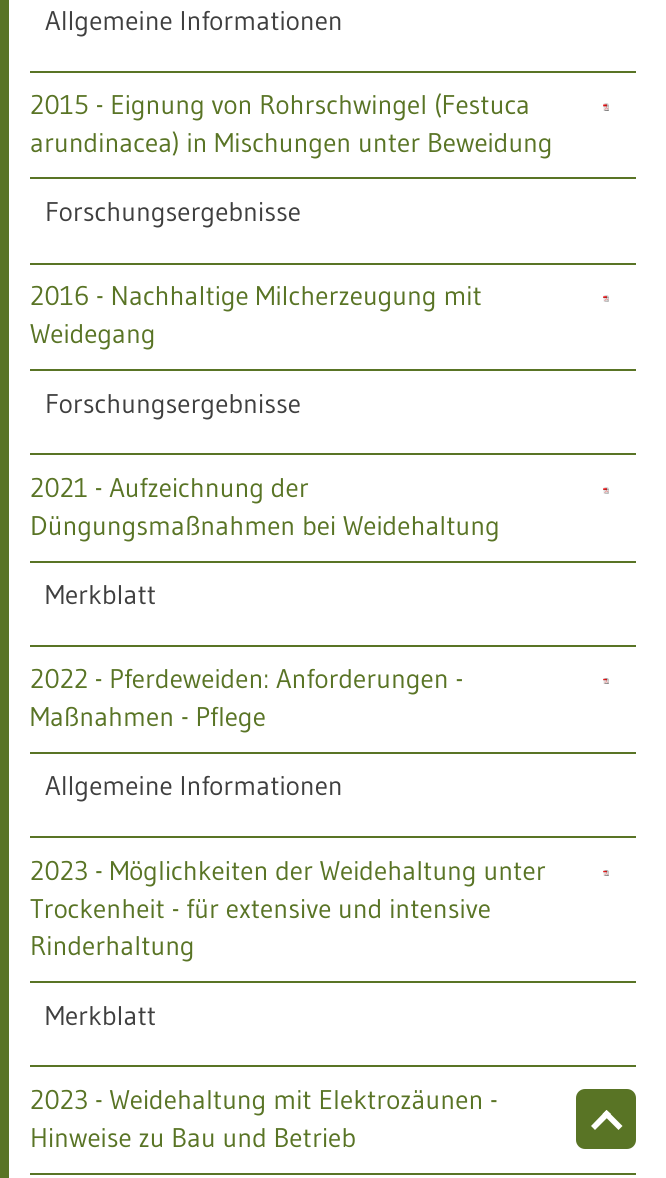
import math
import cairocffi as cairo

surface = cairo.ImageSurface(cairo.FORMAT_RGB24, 666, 1178)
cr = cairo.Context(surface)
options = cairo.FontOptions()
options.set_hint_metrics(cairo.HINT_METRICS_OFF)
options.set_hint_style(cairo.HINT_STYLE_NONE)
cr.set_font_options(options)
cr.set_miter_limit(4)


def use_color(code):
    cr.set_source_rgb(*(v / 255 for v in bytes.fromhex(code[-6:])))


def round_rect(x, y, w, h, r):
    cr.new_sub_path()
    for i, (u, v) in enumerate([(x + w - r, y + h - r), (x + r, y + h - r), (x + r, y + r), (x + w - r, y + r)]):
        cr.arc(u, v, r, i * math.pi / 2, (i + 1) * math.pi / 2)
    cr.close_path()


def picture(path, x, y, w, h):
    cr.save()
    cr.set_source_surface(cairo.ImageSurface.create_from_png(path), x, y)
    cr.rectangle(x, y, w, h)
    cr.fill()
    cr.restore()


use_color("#ffffff")
cr.paint()
use_color("#597425")
cr.rectangle(0, 0, 9, 1178)
cr.fill()
cr.select_font_face("Gudea")
cr.set_font_size(27)
use_color("#3f3f3f")
cr.move_to(45, 30)
cr.show_text("Allgemeine Informationen")
use_color("#597425")
cr.rectangle(30, 71, 606, 2)
cr.fill()
cr.move_to(30, 114)
cr.show_text("2015 - Eignung von Rohrschwingel (Festuca")
cr.move_to(30, 152)
cr.show_text("arundinacea) in Mischungen unter Beweidung")
picture("img1.png", 603, 103, 6, 8)
cr.rectangle(30, 177, 606, 2)
cr.fill()
use_color("#3f3f3f")
cr.move_to(45, 221)
cr.show_text("Forschungsergebnisse")
use_color("#597425")
cr.rectangle(30, 263, 606, 2)
cr.fill()
cr.move_to(30, 305)
cr.show_text("2016 - Nachhaltige Milcherzeugung mit")
cr.move_to(30, 343)
cr.show_text("Weidegang")
picture("img2.png", 603, 295, 6, 7)
cr.rectangle(30, 369, 606, 2)
cr.fill()
use_color("#3f3f3f")
cr.move_to(45, 413)
cr.show_text("Forschungsergebnisse")
use_color("#597425")
cr.rectangle(30, 453, 606, 2)
cr.fill()
cr.move_to(30, 497)
cr.show_text("2021 - Aufzeichnung der")
cr.move_to(30, 535)
cr.show_text("Düngungsmaßnahmen bei Weidehaltung")
picture("img2.png", 603, 487, 6, 7)
cr.rectangle(30, 561, 606, 2)
cr.fill()
use_color("#3f3f3f")
cr.move_to(45, 604)
cr.show_text("Merkblatt")
use_color("#597425")
cr.rectangle(30, 645, 606, 2)
cr.fill()
cr.move_to(30, 688)
cr.show_text("2022 - Pferdeweiden: Anforderungen -")
cr.move_to(30, 726)
cr.show_text("Maßnahmen - Pflege")
picture("img3.png", 603, 678, 6, 6)
cr.rectangle(30, 752, 606, 2)
cr.fill()
use_color("#3f3f3f")
cr.move_to(45, 795)
cr.show_text("Allgemeine Informationen")
use_color("#597425")
cr.rectangle(30, 836, 606, 2)
cr.fill()
cr.move_to(30, 880)
cr.show_text("2023 - Möglichkeiten der Weidehaltung unter")
cr.move_to(30, 918)
cr.show_text("Trockenheit - für extensive und intensive")
cr.move_to(30, 955)
cr.show_text("Rinderhaltung")
picture("img3.png", 603, 870, 6, 6)
cr.rectangle(30, 981, 606, 2)
cr.fill()
use_color("#3f3f3f")
cr.move_to(45, 1025)
cr.show_text("Merkblatt")
use_color("#597425")
cr.rectangle(30, 1065, 606, 2)
cr.fill()
cr.move_to(30, 1109)
cr.show_text("2023 - Weidehaltung mit Elektrozäunen -")
cr.move_to(30, 1147)
cr.show_text("Hinweise zu Bau und Betrieb")
cr.rectangle(30, 1173, 606, 2)
cr.fill()
round_rect(576, 1089, 60, 60, 9)
cr.fill()
use_color("#ffffff")
cr.new_path()
cr.move_to(591, 1126)
cr.line_to(606.5, 1110)
cr.line_to(611, 1114)
cr.line_to(595, 1130)
cr.close_path()
cr.fill()
cr.new_path()
cr.move_to(602.5, 1114)
cr.line_to(606.5, 1110)
cr.line_to(622.5, 1126)
cr.line_to(618.5, 1130)
cr.close_path()
cr.fill()
surface.write_to_png("result.png")
